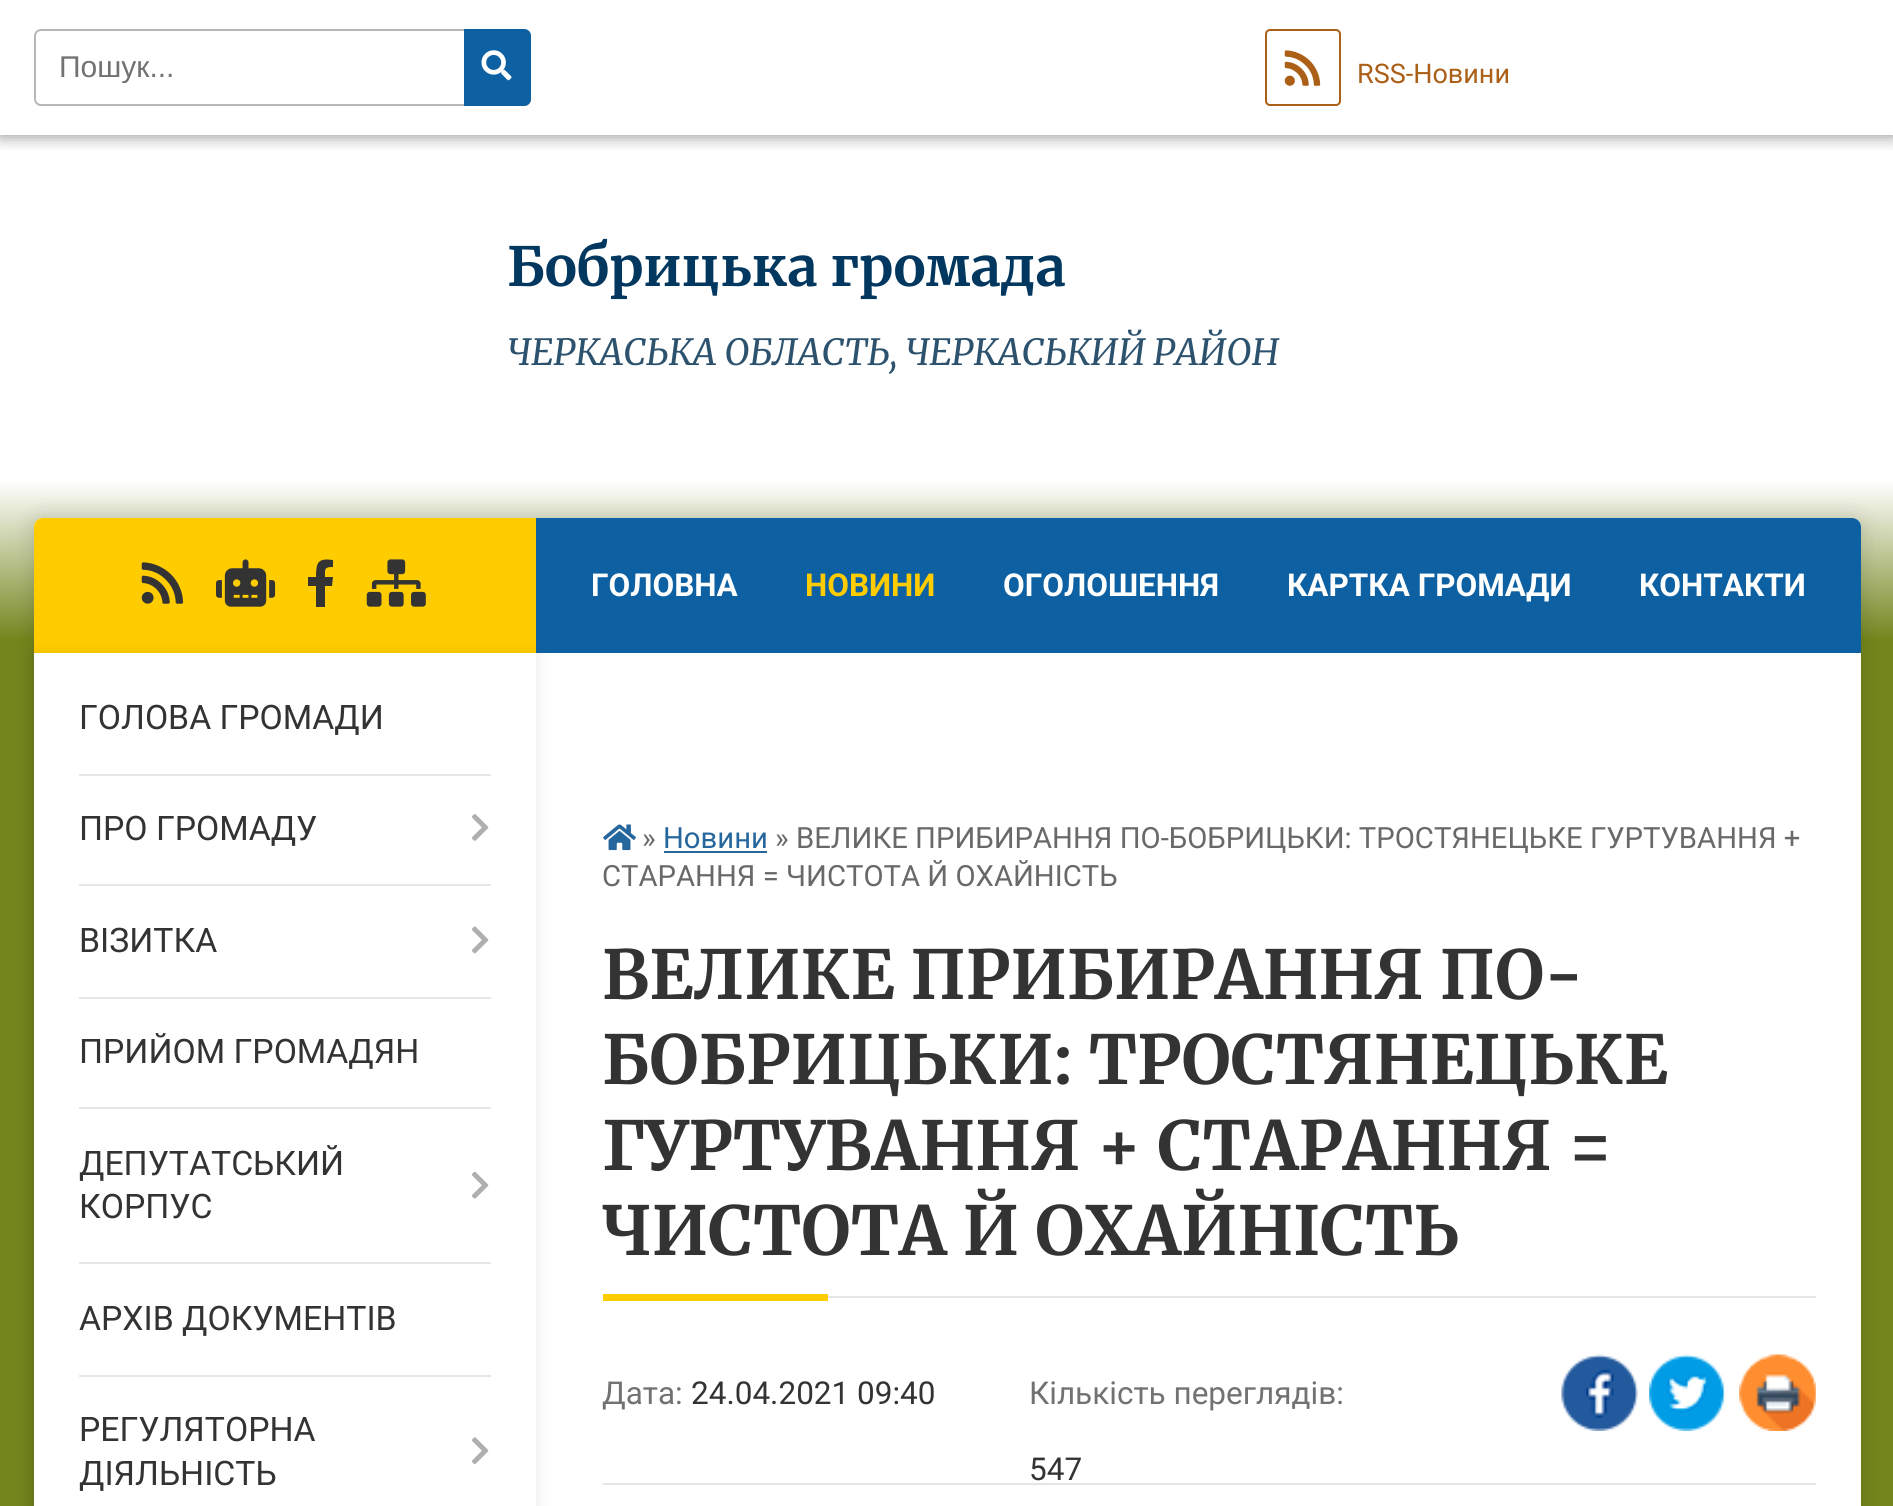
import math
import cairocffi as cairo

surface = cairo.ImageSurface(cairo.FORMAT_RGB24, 1893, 1506)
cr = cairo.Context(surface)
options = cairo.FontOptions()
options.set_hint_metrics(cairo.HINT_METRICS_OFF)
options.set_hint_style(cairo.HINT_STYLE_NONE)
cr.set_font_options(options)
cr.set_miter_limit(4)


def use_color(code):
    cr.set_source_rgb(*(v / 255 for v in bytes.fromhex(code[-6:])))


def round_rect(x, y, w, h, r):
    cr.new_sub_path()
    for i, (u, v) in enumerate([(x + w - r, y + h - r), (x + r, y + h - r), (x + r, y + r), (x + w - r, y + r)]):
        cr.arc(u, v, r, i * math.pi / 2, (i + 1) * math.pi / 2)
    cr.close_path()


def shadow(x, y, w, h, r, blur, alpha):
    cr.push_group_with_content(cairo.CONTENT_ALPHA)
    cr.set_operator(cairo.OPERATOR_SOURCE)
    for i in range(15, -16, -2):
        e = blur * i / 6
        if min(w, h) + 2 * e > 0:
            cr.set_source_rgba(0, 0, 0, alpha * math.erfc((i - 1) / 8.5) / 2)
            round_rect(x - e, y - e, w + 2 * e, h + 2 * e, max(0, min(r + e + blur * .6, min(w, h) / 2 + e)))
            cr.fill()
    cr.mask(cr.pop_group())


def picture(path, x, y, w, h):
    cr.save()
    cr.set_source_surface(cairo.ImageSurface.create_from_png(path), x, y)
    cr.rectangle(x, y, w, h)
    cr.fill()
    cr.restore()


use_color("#ffffff")
cr.paint()
gradient = cairo.LinearGradient(947, 0, 947, 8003)
gradient.add_color_stop_rgba(0.06, 1, 1, 1, 1)
gradient.add_color_stop_rgba(0.08, 0.455, 0.522, 0.11, 1)
cr.set_source(gradient)
cr.rectangle(0, 482, 1893, 1024)
cr.fill()
cr.save()
cr.rectangle(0, 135, 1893, 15)
cr.clip()
use_color("#000000")
shadow(0, 2, 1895, 135, 0, 8, 0.4)
cr.restore()
round_rect(35, 30, 495, 75, 6)
use_color("#b7b7b7")
cr.stroke()
cr.save()
cr.rectangle(59, 50, 380, 33)
cr.clip()
cr.select_font_face("Liberation Sans")
cr.set_font_size(30)
use_color("#727272")
cr.move_to(59, 77)
cr.show_text("Пошук...")
cr.restore()
use_color("#0d61a2")
cr.new_path()
cr.move_to(464, 29)
cr.line_to(524, 29)
cr.curve_to(528, 29, 531, 32, 531, 36)
cr.line_to(531, 99)
cr.curve_to(531, 103, 528, 106, 524, 106)
cr.line_to(464, 106)
cr.close_path()
cr.fill()
picture("img1.png", 481, 50, 31, 31)
round_rect(1266, 30, 74, 75, 4)
use_color("#ab5f17")
cr.stroke()
picture("img2.png", 1284, 50, 37, 36)
cr.select_font_face("Roboto")
cr.set_font_size(27)
cr.move_to(1357, 83)
cr.show_text("RSS-Новини")
cr.select_font_face("Merriweather Light")
cr.set_font_size(54)
use_color("#02375f")
cr.move_to(507, 286)
cr.show_text("Бобрицька громада")
cr.select_font_face("Merriweather Light", cairo.FONT_SLANT_ITALIC)
cr.set_font_size(36)
use_color("#2c526e")
cr.move_to(507, 365)
cr.show_text("ЧЕРКАСЬКА ОБЛАСТЬ, ЧЕРКАСЬКИЙ РАЙОН")
use_color("#000000")
shadow(34, 518, 1827, 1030, 9, 11, 0.15)
use_color("#ffffff")
round_rect(34, 518, 1827, 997, 9)
cr.fill()
use_color("#ffcc00")
cr.new_path()
cr.move_to(43, 518)
cr.line_to(536, 518)
cr.line_to(536, 653)
cr.line_to(34, 653)
cr.line_to(34, 527)
cr.curve_to(34, 522, 38, 518, 43, 518)
cr.close_path()
cr.fill()
picture("img3.png", 141, 562, 43, 42)
picture("img4.png", 216, 559, 60, 48)
use_color("#333333")
cr.new_path()
cr.move_to(332, 586)
cr.line_to(325, 586)
cr.line_to(325, 607)
cr.line_to(316, 607)
cr.line_to(316, 586)
cr.line_to(308, 586)
cr.line_to(308, 577)
cr.line_to(316, 577)
cr.curve_to(316, 562, 318, 558, 333, 560)
cr.line_to(333, 567)
cr.curve_to(324, 567, 325, 569, 325, 577)
cr.line_to(333, 577)
cr.close_path()
cr.fill()
picture("img5.png", 366, 559, 60, 48)
use_color("#0d61a2")
cr.new_path()
cr.move_to(536, 518)
cr.line_to(1852, 518)
cr.curve_to(1857, 518, 1861, 522, 1861, 527)
cr.line_to(1861, 653)
cr.line_to(536, 653)
cr.close_path()
cr.fill()
cr.save()
cr.set_fill_rule(cairo.FILL_RULE_EVEN_ODD)
cr.new_path()
cr.move_to(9, 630)
cr.line_to(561, 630)
cr.line_to(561, 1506)
cr.line_to(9, 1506)
cr.close_path()
cr.move_to(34, 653)
cr.line_to(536, 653)
cr.line_to(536, 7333)
cr.line_to(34, 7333)
cr.close_path()
cr.clip()
use_color("#000000")
shadow(34, 655, 502, 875, 0, 8, 0.1)
cr.restore()
cr.select_font_face("Roboto")
cr.set_font_size(33.75)
use_color("#333333")
cr.move_to(79, 729)
cr.show_text("ГОЛОВА ГРОМАДИ")
use_color("#e6e6e6")
cr.rectangle(79, 774, 412, 2)
cr.fill()
use_color("#333333")
cr.move_to(79, 840)
cr.show_text("ПРО ГРОМАДУ")
use_color("#e6e6e6")
cr.rectangle(79, 884, 412, 2)
cr.fill()
picture("img6.png", 472, 814, 17, 27)
use_color("#333333")
cr.move_to(79, 952)
cr.show_text("ВІЗИТКА")
use_color("#e6e6e6")
cr.rectangle(79, 997, 412, 2)
cr.fill()
picture("img7.png", 472, 926, 17, 28)
use_color("#333333")
cr.move_to(79, 1063)
cr.show_text("ПРИЙОМ ГРОМАДЯН")
use_color("#e6e6e6")
cr.rectangle(79, 1107, 412, 2)
cr.fill()
use_color("#333333")
cr.move_to(79, 1175)
cr.show_text("ДЕПУТАТСЬКИЙ")
cr.move_to(79, 1218)
cr.show_text("КОРПУС")
use_color("#e6e6e6")
cr.rectangle(79, 1262, 412, 2)
cr.fill()
picture("img8.png", 472, 1171, 17, 28)
use_color("#333333")
cr.move_to(79, 1330)
cr.show_text("АРХІВ ДОКУМЕНТІВ")
use_color("#e6e6e6")
cr.rectangle(79, 1375, 412, 2)
cr.fill()
use_color("#333333")
cr.move_to(79, 1441)
cr.show_text("РЕГУЛЯТОРНА")
cr.move_to(79, 1485)
cr.show_text("ДІЯЛЬНІСТЬ")
picture("img9.png", 472, 1437, 17, 27)
cr.select_font_face("Roboto", cairo.FONT_SLANT_NORMAL, cairo.FONT_WEIGHT_BOLD)
cr.set_font_size(31.5)
use_color("#ffffff")
cr.move_to(591, 596)
cr.show_text("ГОЛОВНА")
use_color("#ffcc00")
cr.move_to(805, 596)
cr.show_text("НОВИНИ")
use_color("#ffffff")
cr.move_to(1003, 596)
cr.show_text("ОГОЛОШЕННЯ")
cr.move_to(1287, 596)
cr.show_text("КАРТКА ГРОМАДИ")
cr.move_to(1639, 596)
cr.show_text("КОНТАКТИ")
picture("img10.png", 603, 824, 33, 27)
cr.select_font_face("Roboto")
cr.set_font_size(29.25)
use_color("#696969")
cr.move_to(642, 848)
cr.show_text("»")
use_color("#25669c")
cr.move_to(663, 848)
cr.show_text("Новини")
cr.rectangle(664, 851, 103, 2)
cr.fill()
use_color("#696969")
cr.move_to(775, 848)
cr.show_text("» ВЕЛИКЕ ПРИБИРАННЯ ПО-БОБРИЦЬКИ: ТРОСТЯНЕЦЬКЕ ГУРТУВАННЯ +")
cr.move_to(602, 886)
cr.show_text("СТАРАННЯ = ЧИСТОТА Й ОХАЙНІСТЬ")
use_color("#e5e5e5")
cr.rectangle(828, 1296, 988, 2)
cr.fill()
cr.select_font_face("Merriweather Light")
cr.set_font_size(67.5)
use_color("#333333")
cr.move_to(602, 999)
cr.show_text("ВЕЛИКЕ ПРИБИРАННЯ ПО-")
cr.move_to(602, 1084)
cr.show_text("БОБРИЦЬКИ: ТРОСТЯНЕЦЬКЕ")
cr.move_to(602, 1170)
cr.show_text("ГУРТУВАННЯ + СТАРАННЯ =")
cr.move_to(602, 1255)
cr.show_text("ЧИСТОТА Й ОХАЙНІСТЬ")
use_color("#ffcc00")
cr.rectangle(603, 1294, 225, 7)
cr.fill()
cr.select_font_face("Roboto")
cr.set_font_size(31.5)
use_color("#727272")
cr.move_to(602, 1404)
cr.show_text("Дата:")
use_color("#333333")
cr.move_to(691, 1404)
cr.show_text("24.04.2021 09:40")
use_color("#727272")
cr.move_to(1029, 1404)
cr.show_text("Кількість переглядів:")
use_color("#333333")
cr.move_to(1029, 1480)
cr.show_text("547")
picture("img11.png", 1561, 1354, 77, 77)
picture("img12.png", 1649, 1354, 76, 77)
picture("img13.png", 1739, 1354, 77, 77)
use_color("#e5e5e5")
cr.rectangle(603, 1483, 1213, 2)
cr.fill()
surface.write_to_png("result.png")
